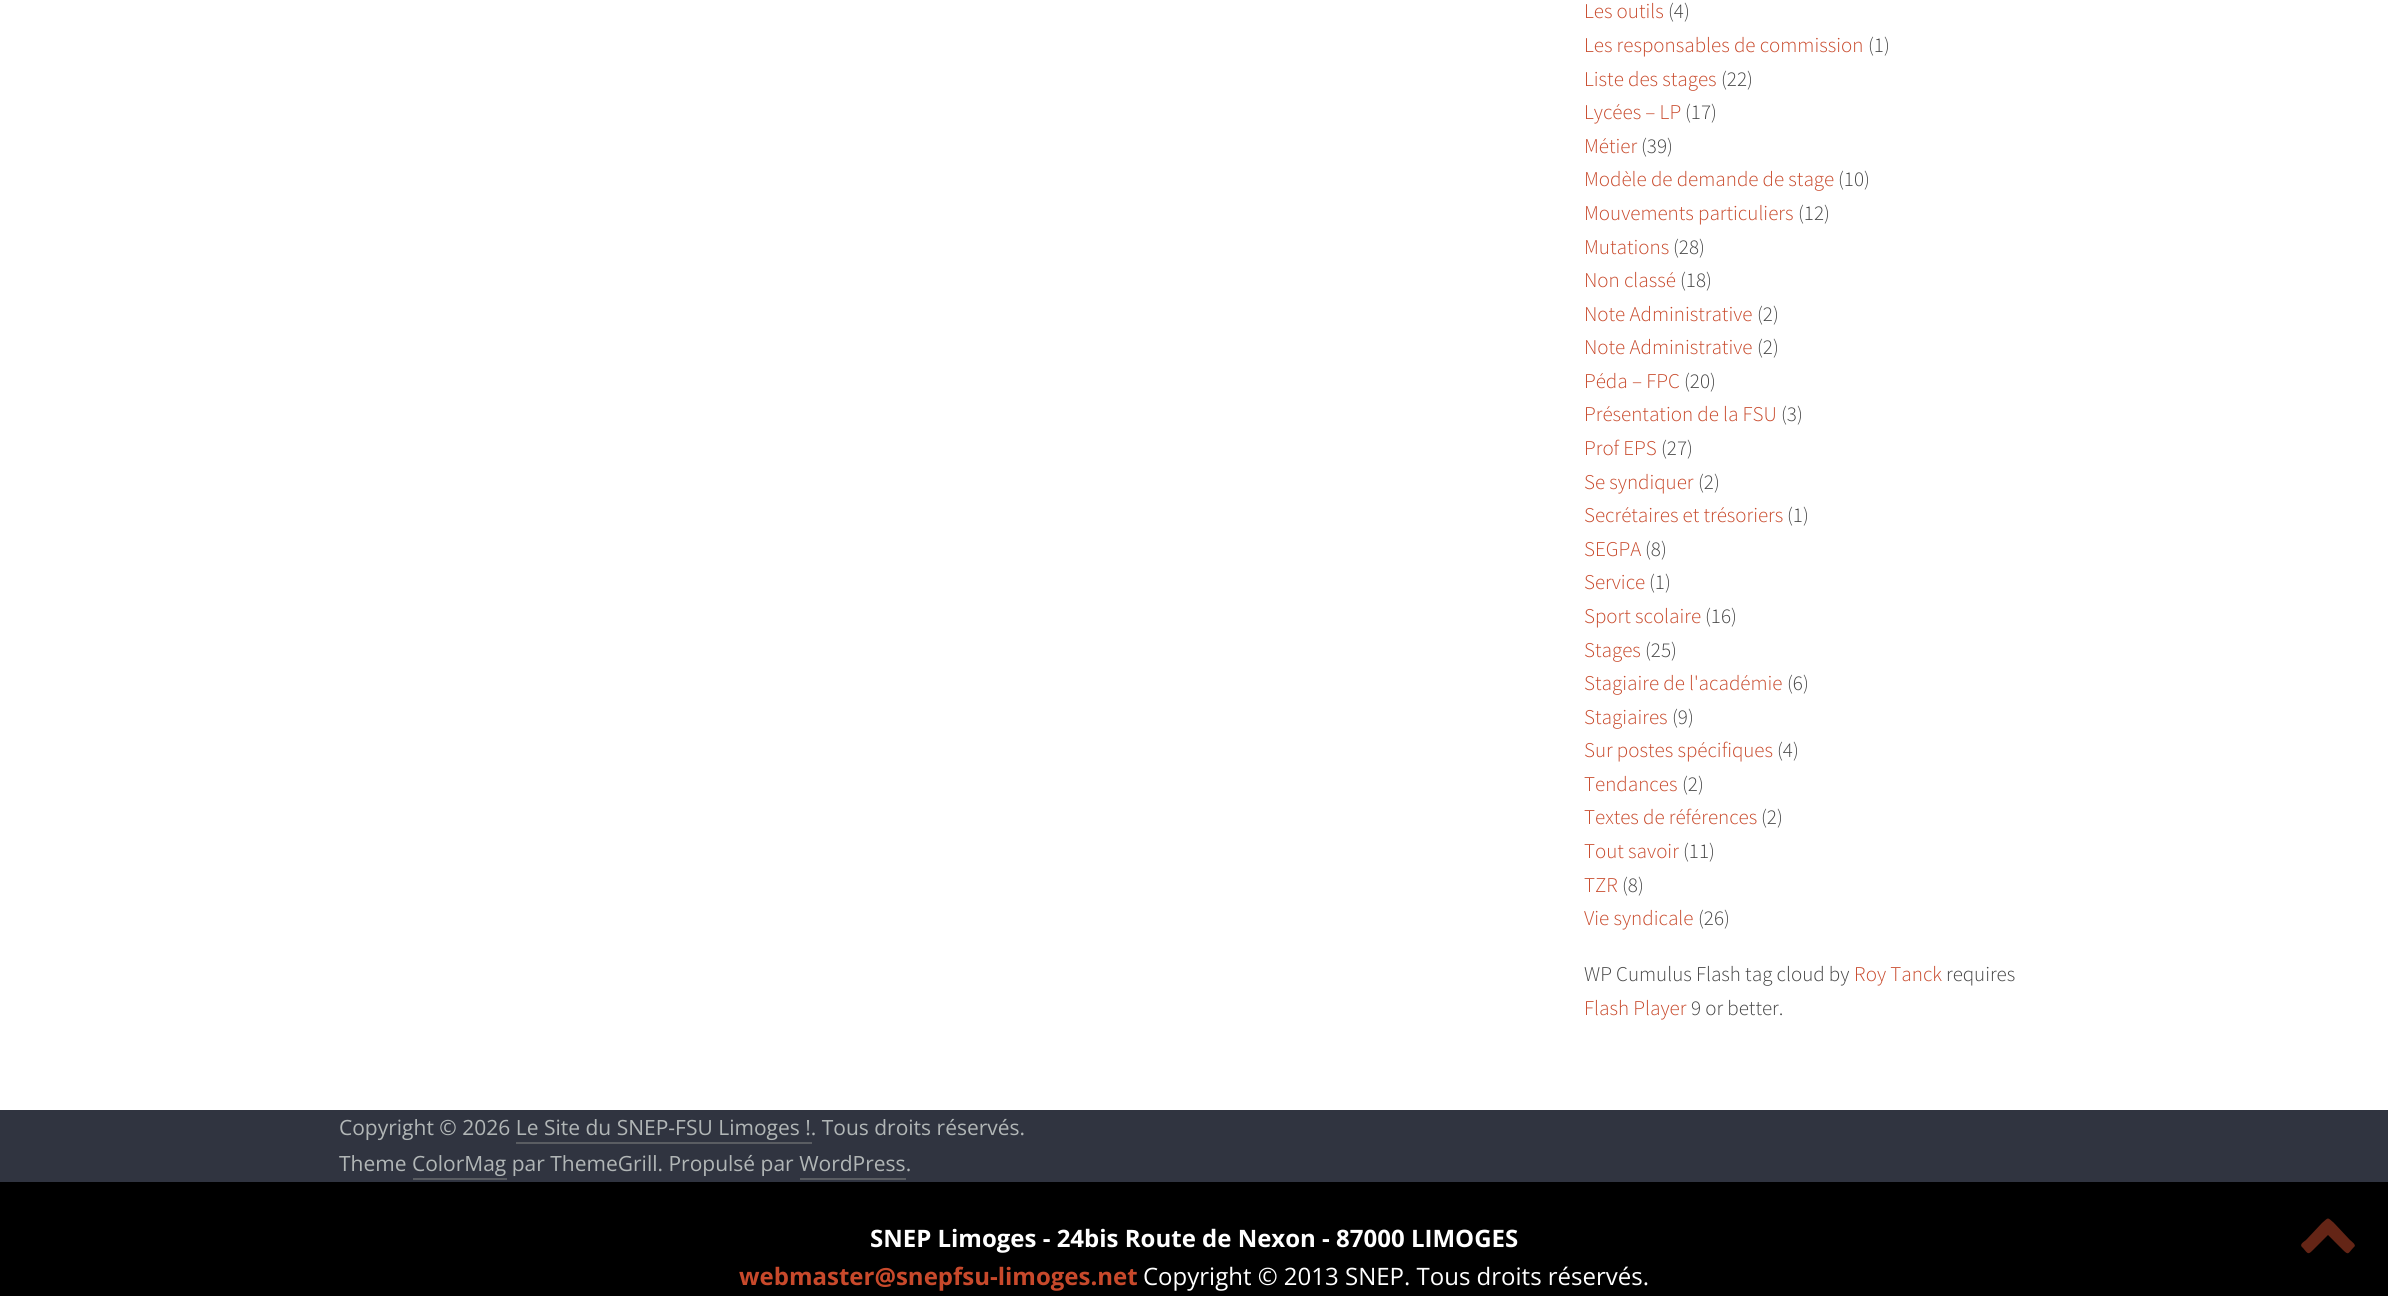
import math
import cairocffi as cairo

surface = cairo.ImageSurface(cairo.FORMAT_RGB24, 2388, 1296)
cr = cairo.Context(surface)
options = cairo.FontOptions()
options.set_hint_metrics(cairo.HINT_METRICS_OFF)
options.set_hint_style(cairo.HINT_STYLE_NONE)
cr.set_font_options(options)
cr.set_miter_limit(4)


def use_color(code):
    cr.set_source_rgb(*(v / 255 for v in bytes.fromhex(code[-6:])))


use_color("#ffffff")
cr.paint()
cr.select_font_face("Source Sans Pro Light")
cr.set_font_size(21)
use_color("#c8492b")
cr.move_to(1584, 18)
cr.show_text("Les outils")
use_color("#444444")
cr.move_to(1668, 18)
cr.show_text("(4)")
use_color("#c8492b")
cr.move_to(1584, 52)
cr.show_text("Les responsables de commission")
use_color("#444444")
cr.move_to(1868, 52)
cr.show_text("(1)")
use_color("#c8492b")
cr.move_to(1584, 86)
cr.show_text("Liste des stages")
use_color("#444444")
cr.move_to(1721, 86)
cr.show_text("(22)")
use_color("#c8492b")
cr.move_to(1584, 119)
cr.show_text("Lycées – LP")
use_color("#444444")
cr.move_to(1685, 119)
cr.show_text("(17)")
use_color("#c8492b")
cr.move_to(1584, 153)
cr.show_text("Métier")
use_color("#444444")
cr.move_to(1641, 153)
cr.show_text("(39)")
use_color("#c8492b")
cr.move_to(1584, 186)
cr.show_text("Modèle de demande de stage")
use_color("#444444")
cr.move_to(1838, 186)
cr.show_text("(10)")
use_color("#c8492b")
cr.move_to(1584, 220)
cr.show_text("Mouvements particuliers")
use_color("#444444")
cr.move_to(1798, 220)
cr.show_text("(12)")
use_color("#c8492b")
cr.move_to(1584, 254)
cr.show_text("Mutations")
use_color("#444444")
cr.move_to(1673, 254)
cr.show_text("(28)")
use_color("#c8492b")
cr.move_to(1584, 287)
cr.show_text("Non classé")
use_color("#444444")
cr.move_to(1680, 287)
cr.show_text("(18)")
use_color("#c8492b")
cr.move_to(1584, 321)
cr.show_text("Note Administrative")
use_color("#444444")
cr.move_to(1757, 321)
cr.show_text("(2)")
use_color("#c8492b")
cr.move_to(1584, 354)
cr.show_text("Note Administrative")
use_color("#444444")
cr.move_to(1757, 354)
cr.show_text("(2)")
use_color("#c8492b")
cr.move_to(1584, 388)
cr.show_text("Péda – FPC")
use_color("#444444")
cr.move_to(1684, 388)
cr.show_text("(20)")
use_color("#c8492b")
cr.move_to(1584, 421)
cr.show_text("Présentation de la FSU")
use_color("#444444")
cr.move_to(1781, 421)
cr.show_text("(3)")
use_color("#c8492b")
cr.move_to(1584, 455)
cr.show_text("Prof EPS")
use_color("#444444")
cr.move_to(1661, 455)
cr.show_text("(27)")
use_color("#c8492b")
cr.move_to(1584, 489)
cr.show_text("Se syndiquer")
use_color("#444444")
cr.move_to(1698, 489)
cr.show_text("(2)")
use_color("#c8492b")
cr.move_to(1584, 522)
cr.show_text("Secrétaires et trésoriers")
use_color("#444444")
cr.move_to(1787, 522)
cr.show_text("(1)")
use_color("#c8492b")
cr.move_to(1584, 556)
cr.show_text("SEGPA")
use_color("#444444")
cr.move_to(1645, 556)
cr.show_text("(8)")
use_color("#c8492b")
cr.move_to(1584, 589)
cr.show_text("Service")
use_color("#444444")
cr.move_to(1649, 589)
cr.show_text("(1)")
use_color("#c8492b")
cr.move_to(1584, 623)
cr.show_text("Sport scolaire")
use_color("#444444")
cr.move_to(1705, 623)
cr.show_text("(16)")
use_color("#c8492b")
cr.move_to(1584, 657)
cr.show_text("Stages")
use_color("#444444")
cr.move_to(1645, 657)
cr.show_text("(25)")
use_color("#c8492b")
cr.move_to(1584, 690)
cr.show_text("Stagiaire de l'académie")
use_color("#444444")
cr.move_to(1787, 690)
cr.show_text("(6)")
use_color("#c8492b")
cr.move_to(1584, 724)
cr.show_text("Stagiaires")
use_color("#444444")
cr.move_to(1672, 724)
cr.show_text("(9)")
use_color("#c8492b")
cr.move_to(1584, 757)
cr.show_text("Sur postes spécifiques")
use_color("#444444")
cr.move_to(1777, 757)
cr.show_text("(4)")
use_color("#c8492b")
cr.move_to(1584, 791)
cr.show_text("Tendances")
use_color("#444444")
cr.move_to(1682, 791)
cr.show_text("(2)")
use_color("#c8492b")
cr.move_to(1584, 824)
cr.show_text("Textes de références")
use_color("#444444")
cr.move_to(1761, 824)
cr.show_text("(2)")
use_color("#c8492b")
cr.move_to(1584, 858)
cr.show_text("Tout savoir")
use_color("#444444")
cr.move_to(1683, 858)
cr.show_text("(11)")
use_color("#c8492b")
cr.move_to(1584, 892)
cr.show_text("TZR")
use_color("#444444")
cr.move_to(1622, 892)
cr.show_text("(8)")
use_color("#c8492b")
cr.move_to(1584, 925)
cr.show_text("Vie syndicale")
use_color("#444444")
cr.move_to(1698, 925)
cr.show_text("(26)")
cr.move_to(1584, 981)
cr.show_text("WP Cumulus Flash tag cloud by")
use_color("#c8492b")
cr.move_to(1854, 981)
cr.show_text("Roy Tanck")
use_color("#444444")
cr.move_to(1946, 981)
cr.show_text("requires")
use_color("#c8492b")
cr.move_to(1584, 1015)
cr.show_text("Flash Player")
use_color("#444444")
cr.move_to(1691, 1015)
cr.show_text("9 or better.")
use_color("#303440")
cr.rectangle(0, 1110, 2388, 72)
cr.fill()
cr.select_font_face("Open Sans")
use_color("#b1b6b6")
cr.move_to(339, 1135)
cr.show_text("Copyright © 2026 Le Site du SNEP-FSU Limoges !. Tous droits réservés.")
use_color("#5a5d62")
cr.rectangle(516, 1142, 296, 2)
cr.fill()
use_color("#b1b6b6")
cr.move_to(339, 1171)
cr.show_text("Theme ColorMag par ThemeGrill. Propulsé par WordPress.")
use_color("#5a5d62")
cr.rectangle(413, 1178, 94, 2)
cr.fill()
cr.rectangle(800, 1178, 106, 2)
cr.fill()
use_color("#000000")
cr.rectangle(0, 1182, 2388, 114)
cr.fill()
use_color("#642516")
cr.new_path()
cr.move_to(2354, 1247)
cr.curve_to(2348, 1253, 2349, 1256, 2343, 1250)
cr.line_to(2328, 1235)
cr.line_to(2313, 1250)
cr.curve_to(2308, 1255, 2308, 1254, 2303, 1248)
cr.curve_to(2299, 1245, 2302, 1243, 2306, 1240)
cr.line_to(2322, 1223)
cr.curve_to(2329, 1217, 2327, 1217, 2334, 1223)
cr.line_to(2350, 1240)
cr.curve_to(2351, 1241, 2357, 1245, 2354, 1247)
cr.close_path()
cr.fill()
cr.select_font_face("Open Sans", cairo.FONT_SLANT_NORMAL, cairo.FONT_WEIGHT_BOLD)
cr.set_font_size(24)
use_color("#ffffff")
cr.move_to(870, 1247)
cr.show_text("SNEP Limoges - 24bis Route de Nexon - 87000 LIMOGES")
use_color("#c8492b")
cr.move_to(739, 1285)
cr.show_text("webmaster@snepfsu-limoges.net")
cr.select_font_face("Open Sans")
use_color("#ffffff")
cr.move_to(1143, 1285)
cr.show_text("Copyright © 2013 SNEP. Tous droits réservés.")
surface.write_to_png("result.png")
